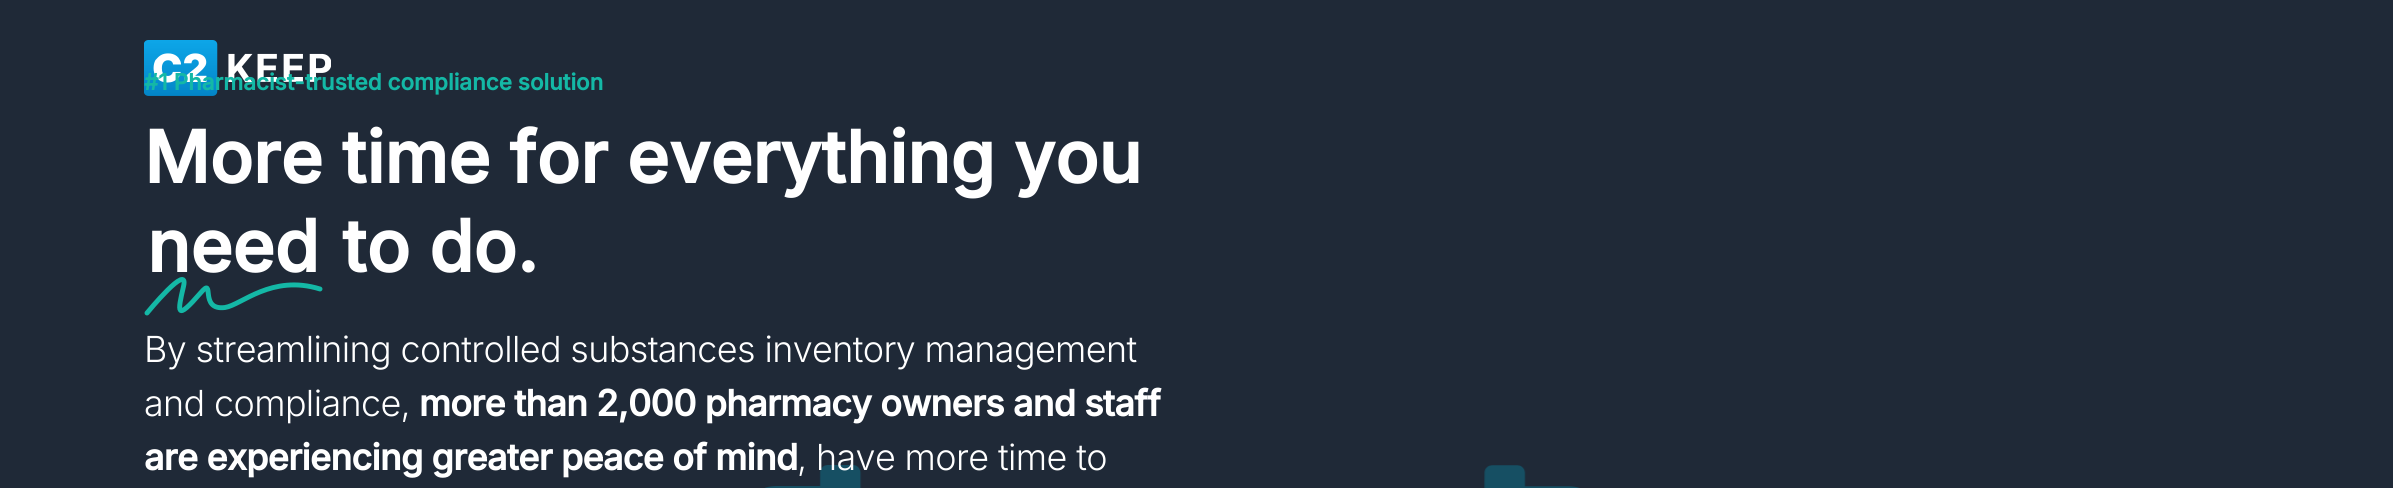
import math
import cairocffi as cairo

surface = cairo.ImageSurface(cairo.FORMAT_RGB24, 2393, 488)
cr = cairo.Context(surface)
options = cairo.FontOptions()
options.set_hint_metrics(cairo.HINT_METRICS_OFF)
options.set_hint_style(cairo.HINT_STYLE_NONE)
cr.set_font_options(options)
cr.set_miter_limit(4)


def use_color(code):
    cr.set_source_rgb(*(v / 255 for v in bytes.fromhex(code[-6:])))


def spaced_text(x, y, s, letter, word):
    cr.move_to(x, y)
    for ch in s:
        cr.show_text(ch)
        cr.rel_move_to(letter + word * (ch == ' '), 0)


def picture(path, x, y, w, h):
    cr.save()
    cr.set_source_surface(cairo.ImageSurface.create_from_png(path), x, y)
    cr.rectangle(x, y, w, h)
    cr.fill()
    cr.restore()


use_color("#1f2937")
cr.paint()
picture("img1.png", 144, 40, 187, 56)
cr.select_font_face("Inter", cairo.FONT_SLANT_NORMAL, cairo.FONT_WEIGHT_BOLD)
cr.set_font_size(22.5)
use_color("#14b8a6")
cr.move_to(144, 90)
cr.show_text("#1 Pharmacist-trusted compliance solution")
cr.set_font_size(71.75)
use_color("#ffffff")
cr.move_to(144, 183)
cr.show_text("More time for everything you")
cr.move_to(147, 272)
cr.show_text("need")
cr.new_path()
cr.move_to(147, 313)
cr.curve_to(147, 313, 189.5, 261, 183.5, 286.5)
cr.curve_to(177.5, 312, 175.5, 322, 200.5, 293)
cr.curve_to(216, 275, 198, 311, 225, 307.5)
cr.curve_to(241.5, 305, 271.5, 274, 320, 289)
use_color("#14b8a6")
cr.set_line_width(4.9)
cr.set_line_cap(cairo.LINE_CAP_ROUND)
cr.stroke()
use_color("#ffffff")
cr.move_to(342, 272)
cr.show_text("to do.")
cr.select_font_face("Inter Light")
cr.set_font_size(35.9)
spaced_text(144, 362, "By streamlining controlled substances inventory management", -0.62, 0)
spaced_text(144, 416, "and compliance,", -0.62, 0)
cr.select_font_face("Inter", cairo.FONT_SLANT_NORMAL, cairo.FONT_WEIGHT_BOLD)
spaced_text(419, 416, "more than 2,000 pharmacy owners and staff", -0.62, 0)
picture("img2.png", 765, 465, 815, 23)
spaced_text(144, 470, "are experiencing greater peace of mind", -0.62, 0)
cr.select_font_face("Inter Light")
spaced_text(797, 470, ", have more time to", -0.62, 0)
surface.write_to_png("result.png")
